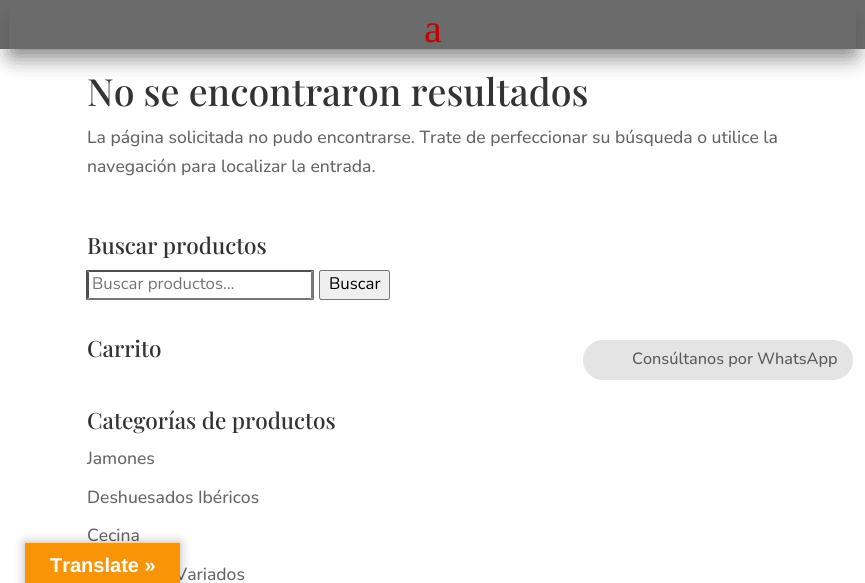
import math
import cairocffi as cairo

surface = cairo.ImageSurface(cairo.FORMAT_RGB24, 865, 583)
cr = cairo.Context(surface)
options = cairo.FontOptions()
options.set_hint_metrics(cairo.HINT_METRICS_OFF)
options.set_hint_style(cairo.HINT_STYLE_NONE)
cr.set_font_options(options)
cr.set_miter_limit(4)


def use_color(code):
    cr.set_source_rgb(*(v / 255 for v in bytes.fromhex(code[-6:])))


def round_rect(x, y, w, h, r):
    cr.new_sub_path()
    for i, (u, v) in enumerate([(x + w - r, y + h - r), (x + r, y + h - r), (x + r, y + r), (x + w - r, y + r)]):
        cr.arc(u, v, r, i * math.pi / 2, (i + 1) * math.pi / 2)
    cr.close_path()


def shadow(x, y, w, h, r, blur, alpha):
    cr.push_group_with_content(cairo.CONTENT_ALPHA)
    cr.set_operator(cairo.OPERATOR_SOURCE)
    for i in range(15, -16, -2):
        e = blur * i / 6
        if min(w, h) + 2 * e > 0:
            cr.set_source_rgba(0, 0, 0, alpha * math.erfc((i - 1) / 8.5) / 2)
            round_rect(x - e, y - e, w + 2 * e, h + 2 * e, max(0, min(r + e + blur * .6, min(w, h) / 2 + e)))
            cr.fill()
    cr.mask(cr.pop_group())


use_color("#ffffff")
cr.paint()
cr.save()
cr.set_fill_rule(cairo.FILL_RULE_EVEN_ODD)
cr.new_path()
cr.move_to(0, 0)
cr.line_to(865, 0)
cr.line_to(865, 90)
cr.line_to(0, 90)
cr.close_path()
cr.move_to(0, 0)
cr.line_to(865, 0)
cr.line_to(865, 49)
cr.line_to(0, 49)
cr.close_path()
cr.clip()
use_color("#000000")
shadow(8, 23, 850, 33, 0, 11, 0.3)
cr.restore()
cr.set_source_rgba(0, 0, 0, 0.58)
cr.rectangle(0, 0, 865, 49)
cr.fill()
cr.save()
cr.set_fill_rule(cairo.FILL_RULE_EVEN_ODD)
cr.new_path()
cr.move_to(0, 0)
cr.line_to(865, 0)
cr.line_to(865, 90)
cr.line_to(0, 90)
cr.close_path()
cr.move_to(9, 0)
cr.line_to(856, 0)
cr.line_to(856, 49)
cr.line_to(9, 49)
cr.close_path()
cr.clip()
use_color("#000000")
shadow(16, 23, 833, 33, 0, 11, 0.3)
cr.restore()
cr.select_font_face("Liberation Serif")
cr.set_font_size(40)
use_color("#c40000")
cr.move_to(424, 42)
cr.show_text("a")
cr.select_font_face("Playfair Display Medium")
cr.set_font_size(37.5)
use_color("#333333")
cr.move_to(87, 106)
cr.show_text("No se encontraron resultados")
cr.select_font_face("Nunito Medium")
cr.set_font_size(17.5)
use_color("#666666")
cr.move_to(87, 143)
cr.show_text("La página solicitada no pudo encontrarse. Trate de perfeccionar su búsqueda o utilice la")
cr.move_to(87, 172)
cr.show_text("navegación para localizar la entrada.")
cr.select_font_face("Playfair Display Medium")
cr.set_font_size(22.5)
use_color("#333333")
cr.move_to(87, 254)
cr.show_text("Buscar productos")
use_color("#4f4f4f")
cr.new_path()
cr.move_to(86, 270)
cr.line_to(314, 270)
cr.line_to(311, 272)
cr.line_to(89, 272)
cr.close_path()
cr.fill()
use_color("#767676")
cr.new_path()
cr.move_to(314, 270)
cr.line_to(314, 300)
cr.line_to(311, 297.5)
cr.line_to(311, 272.5)
cr.close_path()
cr.fill()
cr.new_path()
cr.move_to(314, 300)
cr.line_to(86, 300)
cr.line_to(89, 298)
cr.line_to(311, 298)
cr.close_path()
cr.fill()
use_color("#4f4f4f")
cr.new_path()
cr.move_to(86, 300)
cr.line_to(86, 270)
cr.line_to(89, 272.5)
cr.line_to(89, 297.5)
cr.close_path()
cr.fill()
cr.select_font_face("Nunito")
cr.set_font_size(16.75)
use_color("#757575")
cr.move_to(92, 289)
cr.show_text("Buscar productos…")
use_color("#efefef")
round_rect(319.5, 270.5, 70, 29, 2)
cr.fill_preserve()
use_color("#767676")
cr.set_line_width(1)
cr.stroke()
use_color("#000000")
cr.move_to(329, 289)
cr.show_text("Buscar")
cr.select_font_face("Playfair Display Medium")
cr.set_font_size(22.5)
use_color("#333333")
cr.move_to(87, 357)
cr.show_text("Carrito")
cr.move_to(87, 429)
cr.show_text("Categorías de productos")
cr.select_font_face("Nunito Medium")
cr.set_font_size(17.5)
use_color("#666666")
cr.move_to(87, 464)
cr.show_text("Jamones")
cr.move_to(87, 503)
cr.show_text("Deshuesados Ibéricos")
cr.move_to(87, 541)
cr.show_text("Cecina")
cr.move_to(175, 580)
cr.show_text("Variados")
use_color("#e4e4e4")
round_rect(583, 340, 270, 40, 20)
cr.fill()
cr.set_font_size(16.25)
use_color("#5b5b5b")
cr.move_to(632, 364)
cr.show_text("Consúltanos por WhatsApp")
use_color("#000000")
shadow(25, 543, 155, 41, 0, 5.5, 0.3)
use_color("#f89406")
cr.rectangle(25, 543, 155, 40)
cr.fill()
cr.select_font_face("Liberation Sans", cairo.FONT_SLANT_NORMAL, cairo.FONT_WEIGHT_BOLD)
cr.set_font_size(20)
use_color("#ffffff")
cr.move_to(50, 572)
cr.show_text("Translate »")
surface.write_to_png("result.png")
